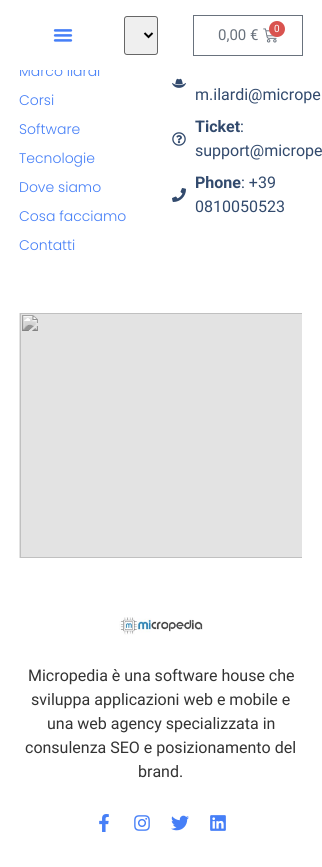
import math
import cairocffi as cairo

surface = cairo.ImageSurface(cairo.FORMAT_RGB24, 322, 867)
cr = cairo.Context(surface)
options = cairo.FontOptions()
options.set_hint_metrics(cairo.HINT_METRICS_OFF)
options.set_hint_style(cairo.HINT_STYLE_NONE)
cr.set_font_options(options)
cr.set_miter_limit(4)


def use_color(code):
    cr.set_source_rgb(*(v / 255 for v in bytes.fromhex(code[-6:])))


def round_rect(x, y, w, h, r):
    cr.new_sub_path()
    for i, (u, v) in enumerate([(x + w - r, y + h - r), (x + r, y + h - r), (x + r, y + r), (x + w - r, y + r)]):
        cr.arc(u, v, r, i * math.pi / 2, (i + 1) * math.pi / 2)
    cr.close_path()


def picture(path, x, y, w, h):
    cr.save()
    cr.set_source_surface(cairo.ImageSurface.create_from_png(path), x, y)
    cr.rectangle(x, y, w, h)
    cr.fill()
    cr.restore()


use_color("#ffffff")
cr.paint()
cr.select_font_face("Poppins Light")
cr.set_font_size(14)
use_color("#467ff7")
cr.move_to(19, 76)
cr.show_text("Marco Ilardi")
use_color("#ffffff")
cr.rectangle(20, 65, 80, 5)
cr.fill()
picture("img1.png", 53, 29, 20, 13)
use_color("#efefef")
round_rect(124.5, 16.5, 33, 38, 2.5)
cr.fill_preserve()
use_color("#666666")
cr.set_line_width(1)
cr.stroke()
cr.new_path()
cr.move_to(144.5, 33)
cr.line_to(148.5, 37)
cr.line_to(152.5, 33)
use_color("#000000")
cr.set_line_width(2)
cr.stroke()
cr.rectangle(193.5, 15.5, 109, 40)
use_color("#69727d")
cr.set_line_width(1)
cr.stroke()
cr.select_font_face("Roboto")
cr.set_font_size(15)
cr.move_to(218, 40)
cr.show_text("0,00 €")
picture("img2.png", 263, 28, 14, 15)
use_color("#d9534f")
cr.arc(277, 29, 8, 0, 2 * math.pi)
cr.fill()
cr.set_font_size(10)
use_color("#ffffff")
cr.move_to(274, 32)
cr.show_text("0")
cr.select_font_face("Poppins Light")
cr.set_font_size(14)
use_color("#467ff7")
cr.move_to(19, 105)
cr.show_text("Corsi")
cr.move_to(19, 134)
cr.show_text("Software")
cr.move_to(19, 163)
cr.show_text("Tecnologie")
cr.move_to(19, 192)
cr.show_text("Dove siamo")
cr.move_to(19, 221)
cr.show_text("Cosa facciamo")
cr.move_to(19, 250)
cr.show_text("Contatti")
picture("img3.png", 172, 78, 14, 10)
cr.select_font_face("Roboto")
cr.set_font_size(16)
use_color("#324a6d")
cr.move_to(195, 100)
cr.show_text("m.ilardi@micrope")
picture("img4.png", 172, 132, 14, 14)
cr.select_font_face("Roboto", cairo.FONT_SLANT_NORMAL, cairo.FONT_WEIGHT_BOLD)
cr.move_to(195, 132)
cr.show_text("Ticket")
cr.select_font_face("Roboto")
cr.move_to(240, 132)
cr.show_text(":")
cr.move_to(195, 156)
cr.show_text("support@micrope")
picture("img5.png", 172, 188, 14, 14)
cr.select_font_face("Roboto", cairo.FONT_SLANT_NORMAL, cairo.FONT_WEIGHT_BOLD)
cr.move_to(195, 188)
cr.show_text("Phone")
cr.select_font_face("Roboto")
cr.move_to(241, 188)
cr.show_text(": +39")
cr.move_to(195, 212)
cr.show_text("0810050523")
picture("img6.png", 19, 313, 283, 245)
picture("img7.png", 119, 617, 84, 18)
use_color("#333333")
cr.move_to(28, 681)
cr.show_text("Micropedia è una software house che")
cr.move_to(31, 705)
cr.show_text("sviluppa applicazioni web e mobile e")
cr.move_to(47, 729)
cr.show_text("una web agency specializzata in")
cr.move_to(25, 753)
cr.show_text("consulenza SEO e posizionamento del")
cr.move_to(138, 777)
cr.show_text("brand.")
picture("img8.png", 99, 814, 10, 18)
picture("img9.png", 134, 815, 16, 16)
picture("img10.png", 171, 815, 18, 16)
picture("img11.png", 210, 815, 16, 16)
surface.write_to_png("result.png")
